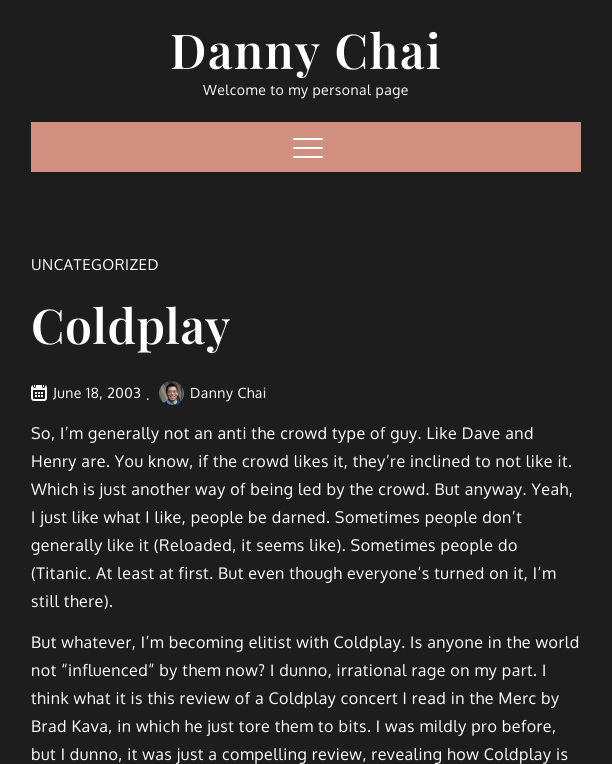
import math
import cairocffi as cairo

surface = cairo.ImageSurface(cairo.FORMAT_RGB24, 612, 764)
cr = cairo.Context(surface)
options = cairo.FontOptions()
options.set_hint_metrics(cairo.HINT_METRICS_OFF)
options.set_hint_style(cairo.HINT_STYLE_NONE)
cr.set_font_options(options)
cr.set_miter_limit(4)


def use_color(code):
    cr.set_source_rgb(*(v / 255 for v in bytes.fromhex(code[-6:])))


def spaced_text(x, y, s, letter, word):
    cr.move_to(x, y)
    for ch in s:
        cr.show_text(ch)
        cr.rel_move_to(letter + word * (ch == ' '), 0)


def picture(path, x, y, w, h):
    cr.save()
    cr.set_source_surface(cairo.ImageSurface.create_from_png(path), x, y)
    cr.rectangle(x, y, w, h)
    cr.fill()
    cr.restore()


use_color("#1d1d1d")
cr.paint()
cr.select_font_face("Playfair Display SemiBold")
cr.set_font_size(48)
use_color("#ffffff")
spaced_text(170, 69, "Danny Chai", 1.5, 0)
cr.select_font_face("Oxygen")
cr.set_font_size(14)
spaced_text(203, 95, "Welcome to my personal page", 0.5, 0)
use_color("#d18f7f")
cr.rectangle(31, 122, 550, 50)
cr.fill()
use_color("#ffffff")
cr.rectangle(293, 138, 30, 2)
cr.fill()
cr.rectangle(293, 147, 30, 2)
cr.fill()
cr.rectangle(293, 156, 30, 2)
cr.fill()
cr.set_font_size(15)
spaced_text(31, 270, "UNCATEGORIZED", 0.5, 0)
cr.select_font_face("Playfair Display SemiBold")
cr.set_font_size(48)
spaced_text(31, 344, "Coldplay", 0.5, 0)
picture("img1.png", 31, 385, 16, 16)
cr.select_font_face("Oxygen")
cr.set_font_size(14)
spaced_text(53, 398, "June 18, 2003", 0.5, 0)
spaced_text(146, 400, ".", 0.5, 0)
picture("img2.png", 159, 381, 25, 25)
spaced_text(190, 398, "Danny Chai", 0.5, 0)
cr.set_font_size(16)
spaced_text(31, 439, "So, I’m generally not an anti the crowd type of guy. Like Dave and", 0.5, 0)
spaced_text(31, 467, "Henry are. You know, if the crowd likes it, they’re inclined to not like it.", 0.5, 0)
spaced_text(31, 495, "Which is just another way of being led by the crowd. But anyway. Yeah,", 0.5, 0)
spaced_text(31, 523, "I just like what I like, people be darned. Sometimes people don’t", 0.5, 0)
spaced_text(31, 551, "generally like it (Reloaded, it seems like). Sometimes people do", 0.5, 0)
spaced_text(31, 579, "(Titanic. At least at first. But even though everyone’s turned on it, I’m", 0.5, 0)
spaced_text(31, 607, "still there).", 0.5, 0)
spaced_text(31, 648, "But whatever, I’m becoming elitist with Coldplay. Is anyone in the world", 0.5, 0)
spaced_text(31, 676, "not “influenced” by them now? I dunno, irrational rage on my part. I", 0.5, 0)
spaced_text(31, 704, "think what it is this review of a Coldplay concert I read in the Merc by", 0.5, 0)
spaced_text(31, 732, "Brad Kava, in which he just tore them to bits. I was mildly pro before,", 0.5, 0)
spaced_text(31, 760, "but I dunno, it was just a compelling review, revealing how Coldplay is", 0.5, 0)
surface.write_to_png("result.png")
